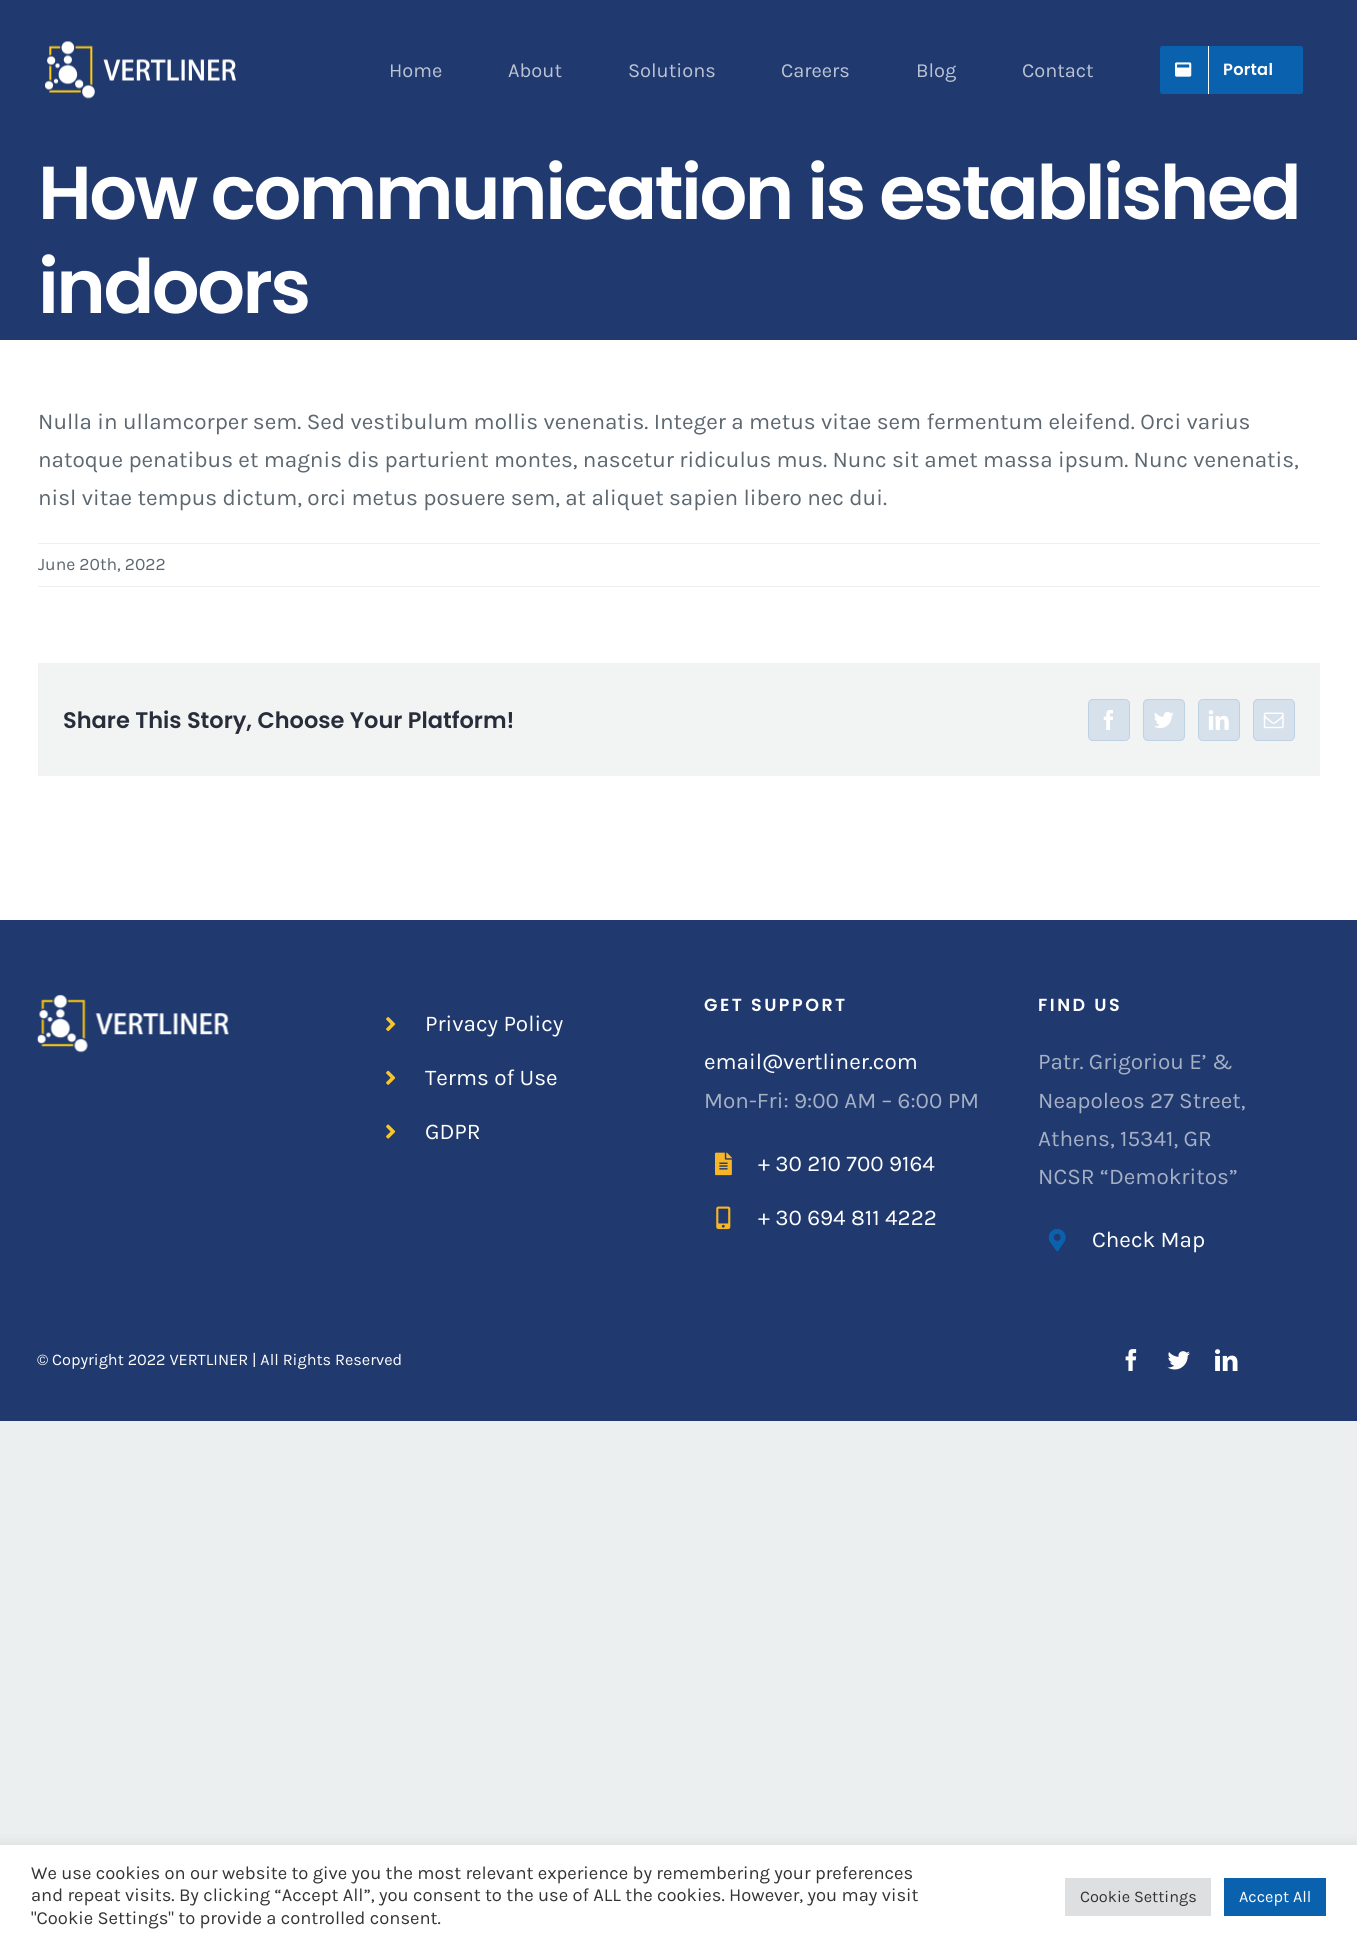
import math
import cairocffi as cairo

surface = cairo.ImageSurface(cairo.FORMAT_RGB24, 1357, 1947)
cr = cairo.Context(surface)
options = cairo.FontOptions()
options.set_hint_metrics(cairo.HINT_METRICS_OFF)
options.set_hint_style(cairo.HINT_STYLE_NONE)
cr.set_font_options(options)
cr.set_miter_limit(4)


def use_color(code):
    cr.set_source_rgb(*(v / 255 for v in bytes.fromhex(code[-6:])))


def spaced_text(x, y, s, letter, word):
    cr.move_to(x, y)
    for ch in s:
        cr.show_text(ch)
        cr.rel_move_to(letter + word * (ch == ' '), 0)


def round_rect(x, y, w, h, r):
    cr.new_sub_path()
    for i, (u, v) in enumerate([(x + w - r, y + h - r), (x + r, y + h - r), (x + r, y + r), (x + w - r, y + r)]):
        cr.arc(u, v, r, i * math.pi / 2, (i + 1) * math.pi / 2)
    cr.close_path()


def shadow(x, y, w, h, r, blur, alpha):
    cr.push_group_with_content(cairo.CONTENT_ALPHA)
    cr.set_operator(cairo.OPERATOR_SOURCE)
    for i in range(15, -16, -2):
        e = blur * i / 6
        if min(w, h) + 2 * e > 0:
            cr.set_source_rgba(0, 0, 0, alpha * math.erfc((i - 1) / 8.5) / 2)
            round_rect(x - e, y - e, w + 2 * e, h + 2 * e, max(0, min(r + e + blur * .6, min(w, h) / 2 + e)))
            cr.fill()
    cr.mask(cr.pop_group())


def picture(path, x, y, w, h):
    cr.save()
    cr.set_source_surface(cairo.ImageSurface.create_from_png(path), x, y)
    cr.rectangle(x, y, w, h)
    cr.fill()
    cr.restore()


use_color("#ecefef")
cr.paint()
use_color("#ffffff")
cr.rectangle(0, 340, 1357, 580)
cr.fill()
use_color("#20396e")
cr.rectangle(0, 0, 1357, 340)
cr.fill()
picture("img1.png", 45, 41, 191, 58)
cr.select_font_face("Karla")
cr.set_font_size(20)
use_color("#bcc4d4")
cr.move_to(389, 77)
cr.show_text("Home")
cr.move_to(508, 77)
cr.show_text("About")
cr.move_to(628, 77)
cr.show_text("Solutions")
cr.move_to(781, 77)
cr.show_text("Careers")
cr.move_to(916, 77)
cr.show_text("Blog")
cr.move_to(1022, 77)
cr.show_text("Contact")
use_color("#0a62af")
round_rect(1160, 46, 143, 48, 2.5)
cr.fill()
use_color("#ffffff")
cr.rectangle(1208, 46, 1, 48)
cr.fill()
picture("img2.png", 1175, 62, 17, 15)
cr.select_font_face("Poppins SemiBold")
cr.set_font_size(16.25)
spaced_text(1223, 75, "Portal", 0.25, 0)
cr.set_font_size(75)
spaced_text(38, 219, "How communication is established", -2.5, 0)
spaced_text(38, 313, "indoors", -2.5, 0)
cr.select_font_face("Karla")
cr.set_font_size(22.5)
use_color("#5c6770")
cr.move_to(38, 429)
cr.show_text("Nulla in ullamcorper sem. Sed vestibulum mollis venenatis. Integer a metus vitae sem fermentum eleifend. Orci varius")
cr.move_to(38, 467)
cr.show_text("natoque penatibus et magnis dis parturient montes, nascetur ridiculus mus. Nunc sit amet massa ipsum. Nunc venenatis,")
cr.move_to(38, 505)
cr.show_text("nisl vitae tempus dictum, orci metus posuere sem, at aliquet sapien libero nec dui.")
use_color("#ecefef")
cr.rectangle(38, 543, 1282, 1)
cr.fill()
cr.rectangle(38, 586, 1282, 1)
cr.fill()
cr.set_font_size(17.5)
use_color("#5c6770")
cr.move_to(38, 570)
cr.show_text("June 20th, 2022")
use_color("#f2f3f3")
cr.rectangle(38, 663, 1282, 113)
cr.fill()
cr.select_font_face("Poppins SemiBold")
cr.set_font_size(22.5)
use_color("#272d3a")
cr.move_to(63, 728)
cr.show_text("Share This Story, Choose Your Platform!")
use_color("#d6e1eb")
round_rect(1088, 699, 42, 42, 5)
cr.fill()
round_rect(1088.5, 699.5, 41, 41, 4.5)
cr.set_source_rgba(0.039, 0.38, 0.682, 0.12)
cr.set_line_width(1)
cr.stroke()
picture("img3.png", 1103, 710, 10, 20)
use_color("#d6e1eb")
round_rect(1143, 699, 42, 42, 5)
cr.fill()
round_rect(1143.5, 699.5, 41, 41, 4.5)
cr.set_source_rgba(0.039, 0.38, 0.682, 0.12)
cr.stroke()
picture("img4.png", 1154, 711, 20, 17)
use_color("#d6e1eb")
round_rect(1198, 699, 42, 42, 5)
cr.fill()
round_rect(1198.5, 699.5, 41, 41, 4.5)
cr.set_source_rgba(0.039, 0.38, 0.682, 0.12)
cr.stroke()
picture("img5.png", 1208, 710, 21, 20)
use_color("#d6e1eb")
round_rect(1253, 699, 42, 42, 5)
cr.fill()
round_rect(1253.5, 699.5, 41, 41, 4.5)
cr.set_source_rgba(0.039, 0.38, 0.682, 0.12)
cr.stroke()
picture("img6.png", 1263, 712, 21, 17)
use_color("#20396e")
cr.rectangle(0, 920, 1357, 501)
cr.fill()
picture("img7.png", 37, 994, 192, 59)
picture("img8.png", 386, 1017, 10, 15)
cr.select_font_face("Karla")
use_color("#ffffff")
cr.move_to(425, 1031)
cr.show_text("Privacy Policy")
picture("img9.png", 386, 1070, 10, 15)
cr.move_to(425, 1085)
cr.show_text("Terms of Use")
picture("img10.png", 386, 1124, 10, 15)
cr.move_to(425, 1139)
cr.show_text("GDPR")
cr.select_font_face("Poppins SemiBold")
cr.set_font_size(17.5)
spaced_text(704, 1011, "GET SUPPORT", 2.5, 0)
cr.select_font_face("Karla")
cr.set_font_size(22.5)
cr.move_to(704, 1069)
cr.show_text("email@vertliner.com")
use_color("#a6b0c5")
cr.move_to(704, 1108)
cr.show_text("Mon-Fri: 9:00 AM – 6:00 PM")
picture("img11.png", 715, 1152, 17, 24)
use_color("#ffffff")
cr.move_to(758, 1171)
cr.show_text("+ 30 210 700 9164")
picture("img12.png", 716, 1206, 15, 24)
cr.move_to(758, 1225)
cr.show_text("+ 30 694 811 4222")
cr.select_font_face("Poppins SemiBold")
cr.set_font_size(17.5)
spaced_text(1038, 1011, "FIND US", 2.5, 0)
cr.select_font_face("Karla")
cr.set_font_size(22.5)
use_color("#a6b0c5")
cr.move_to(1038, 1069)
cr.show_text("Patr. Grigoriou E’ &")
cr.move_to(1038, 1108)
cr.show_text("Neapoleos 27 Street,")
cr.move_to(1038, 1146)
cr.show_text("Athens, 15341, GR")
cr.move_to(1038, 1184)
cr.show_text("NCSR “Demokritos”")
picture("img13.png", 1048, 1229, 18, 23)
use_color("#ffffff")
cr.move_to(1092, 1247)
cr.show_text("Check Map")
cr.set_font_size(16.25)
cr.move_to(37, 1365)
cr.show_text("© Copyright 2022 VERTLINER | All Rights Reserved")
picture("img14.png", 1125, 1349, 12, 22)
picture("img15.png", 1167, 1351, 23, 19)
picture("img16.png", 1215, 1349, 23, 22)
use_color("#acabab")
shadow(0, 1844, 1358, 102, 0, 6, 0.3)
use_color("#ffffff")
cr.rectangle(0, 1845, 1357, 102)
cr.fill()
cr.set_font_size(18.35)
use_color("#333333")
cr.move_to(31, 1879)
cr.show_text("We use cookies on our website to give you the most relevant experience by remembering your preferences")
cr.move_to(31, 1901)
cr.show_text("and repeat visits. By clicking “Accept All”, you consent to the use of ALL the cookies. However, you may visit")
cr.move_to(31, 1924)
cr.show_text("\"Cookie Settings\" to provide a controlled consent.")
use_color("#dedfe0")
cr.rectangle(1065, 1878, 146, 38)
cr.fill()
cr.set_font_size(16.25)
use_color("#333333")
cr.move_to(1080, 1902)
cr.show_text("Cookie Settings")
use_color("#0a62af")
cr.rectangle(1224, 1878, 102, 38)
cr.fill()
use_color("#ffffff")
cr.move_to(1239, 1902)
cr.show_text("Accept All")
surface.write_to_png("result.png")
